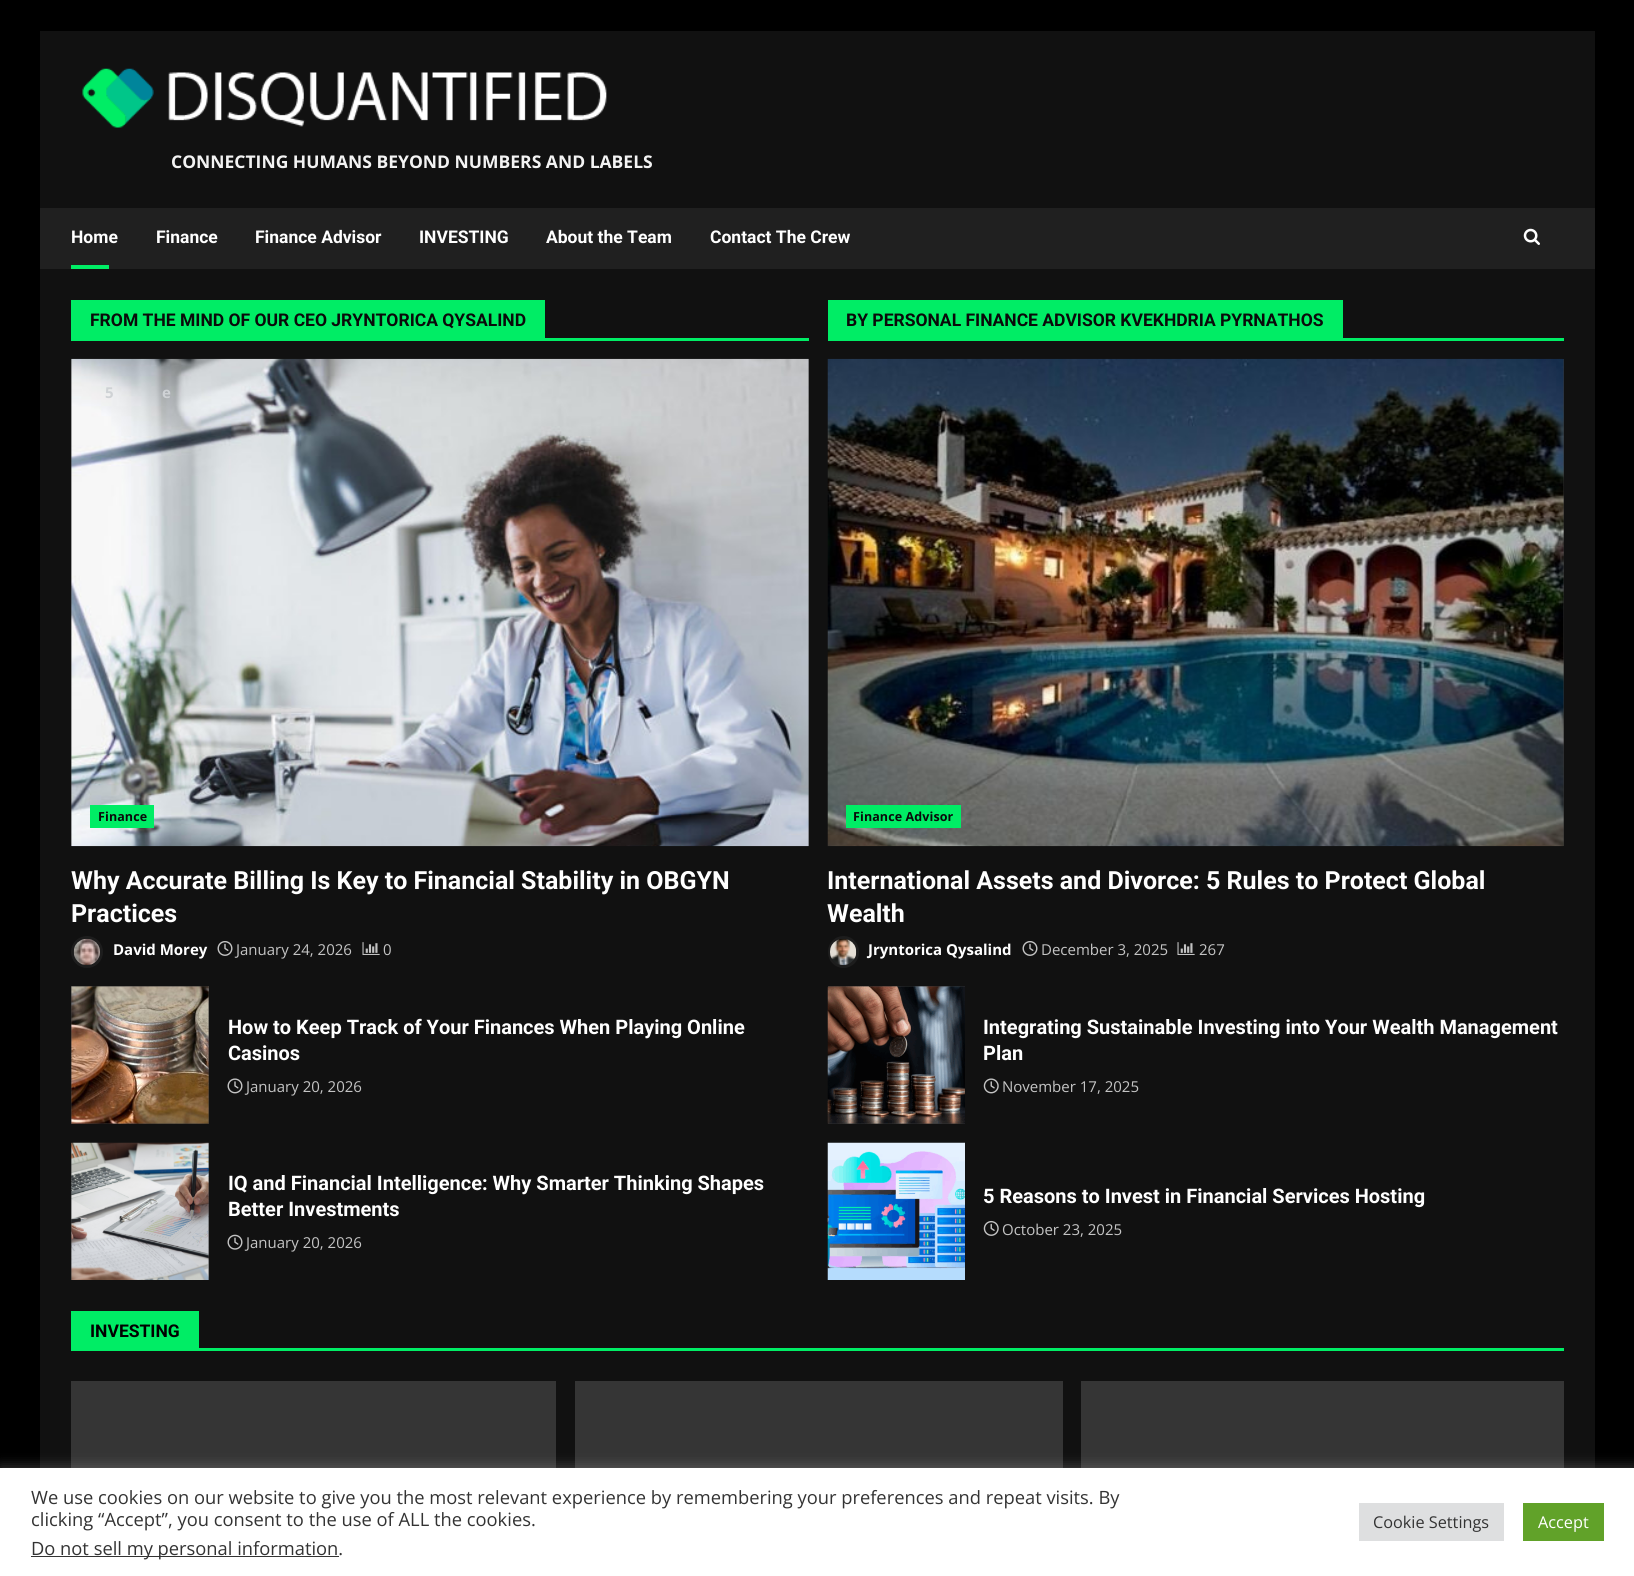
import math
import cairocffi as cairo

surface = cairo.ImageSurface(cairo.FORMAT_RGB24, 1634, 1576)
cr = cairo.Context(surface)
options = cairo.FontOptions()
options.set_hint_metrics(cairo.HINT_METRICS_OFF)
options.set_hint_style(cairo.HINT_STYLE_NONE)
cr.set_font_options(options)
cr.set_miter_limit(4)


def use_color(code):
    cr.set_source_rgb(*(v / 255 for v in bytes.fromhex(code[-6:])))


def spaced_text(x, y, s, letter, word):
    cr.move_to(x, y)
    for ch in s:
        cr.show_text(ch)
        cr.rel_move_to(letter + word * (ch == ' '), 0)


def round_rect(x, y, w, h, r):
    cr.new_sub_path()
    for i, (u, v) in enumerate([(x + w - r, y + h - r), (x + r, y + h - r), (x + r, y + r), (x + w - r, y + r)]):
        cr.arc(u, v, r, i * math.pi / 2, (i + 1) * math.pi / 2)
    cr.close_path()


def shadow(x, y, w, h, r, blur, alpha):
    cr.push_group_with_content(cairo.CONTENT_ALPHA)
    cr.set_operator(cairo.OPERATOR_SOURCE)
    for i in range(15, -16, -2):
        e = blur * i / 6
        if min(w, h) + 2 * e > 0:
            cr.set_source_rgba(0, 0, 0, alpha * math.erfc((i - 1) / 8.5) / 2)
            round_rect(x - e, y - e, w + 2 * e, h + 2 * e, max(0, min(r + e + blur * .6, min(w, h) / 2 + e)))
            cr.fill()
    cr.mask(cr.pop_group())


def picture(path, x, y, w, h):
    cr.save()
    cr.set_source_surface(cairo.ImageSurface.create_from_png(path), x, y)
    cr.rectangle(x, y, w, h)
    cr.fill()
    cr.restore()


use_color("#000000")
cr.paint()
use_color("#111111")
cr.rectangle(40, 31, 1555, 1437)
cr.fill()
picture("img1.png", 82, 68, 525, 60)
cr.select_font_face("Open Sans", cairo.FONT_SLANT_NORMAL, cairo.FONT_WEIGHT_BOLD)
cr.set_font_size(17.5)
use_color("#f3f3f3")
cr.move_to(171, 168)
cr.show_text("CONNECTING HUMANS BEYOND NUMBERS AND LABELS")
use_color("#202020")
cr.rectangle(40, 208, 1555, 61)
cr.fill()
cr.select_font_face("Roboto", cairo.FONT_SLANT_NORMAL, cairo.FONT_WEIGHT_BOLD)
use_color("#ffffff")
cr.move_to(71, 243)
cr.show_text("Home")
use_color("#00ed65")
cr.rectangle(71, 265, 38, 4)
cr.fill()
use_color("#ffffff")
cr.move_to(156, 243)
cr.show_text("Finance")
cr.move_to(255, 243)
cr.show_text("Finance Advisor")
cr.move_to(419, 243)
cr.show_text("INVESTING")
cr.move_to(546, 243)
cr.show_text("About the Team")
cr.move_to(710, 243)
cr.show_text("Contact The Crew")
picture("img2.png", 1523, 228, 17, 17)
use_color("#00ed65")
cr.rectangle(71, 338, 738, 3)
cr.fill()
cr.rectangle(71, 300, 474, 38)
cr.fill()
use_color("#0a0a0a")
cr.move_to(90, 326)
cr.show_text("FROM THE MIND OF OUR CEO JRYNTORICA QYSALIND")
use_color("#353535")
cr.rectangle(71, 359, 738, 487)
cr.fill()
picture("img3.png", 71, 358, 738, 489)
cr.select_font_face("Open Sans", cairo.FONT_SLANT_NORMAL, cairo.FONT_WEIGHT_BOLD)
cr.set_font_size(15)
use_color("#cfd2d5")
spaced_text(105, 398, "5", 1, 0)
spaced_text(162, 398, "e", 1, 0)
use_color("#00ed65")
cr.rectangle(90, 805, 64, 23)
cr.fill()
cr.set_font_size(12.5)
use_color("#0a0a0a")
spaced_text(98, 821, "Finance", 0.1, 0)
cr.select_font_face("Roboto", cairo.FONT_SLANT_NORMAL, cairo.FONT_WEIGHT_BOLD)
cr.set_font_size(25)
use_color("#ffffff")
cr.move_to(71, 889)
cr.show_text("Why Accurate Billing Is Key to Financial Stability in OBGYN")
cr.move_to(71, 922)
cr.show_text("Practices")
cr.new_path()
cr.arc(87, 952, 14.5, 0, 2 * math.pi)
use_color("#1d1d1d")
cr.set_line_width(3)
cr.stroke()
picture("img4.png", 73, 938, 27, 27)
cr.select_font_face("Open Sans", cairo.FONT_SLANT_NORMAL, cairo.FONT_WEIGHT_BOLD)
cr.set_font_size(15)
use_color("#ffffff")
cr.move_to(113, 955)
cr.show_text("David Morey")
picture("img5.png", 217, 941, 16, 15)
cr.select_font_face("Open Sans")
use_color("#c4c4c4")
cr.move_to(236, 955)
cr.show_text("January 24, 2026")
picture("img6.png", 362, 942, 18, 13)
cr.move_to(383, 955)
cr.show_text("0")
use_color("#353535")
cr.rectangle(71, 986, 138, 138)
cr.fill()
picture("img7.png", 71, 986, 138, 138)
cr.select_font_face("Roboto", cairo.FONT_SLANT_NORMAL, cairo.FONT_WEIGHT_BOLD)
cr.set_font_size(20)
use_color("#ffffff")
cr.move_to(228, 1034)
cr.show_text("How to Keep Track of Your Finances When Playing Online")
cr.move_to(228, 1060)
cr.show_text("Casinos")
picture("img8.png", 227, 1078, 16, 16)
cr.select_font_face("Open Sans")
cr.set_font_size(15)
use_color("#c4c4c4")
cr.move_to(246, 1092)
cr.show_text("January 20, 2026")
use_color("#353535")
cr.rectangle(71, 1143, 138, 137)
cr.fill()
picture("img9.png", 71, 1142, 138, 138)
cr.select_font_face("Roboto", cairo.FONT_SLANT_NORMAL, cairo.FONT_WEIGHT_BOLD)
cr.set_font_size(20)
use_color("#ffffff")
cr.move_to(228, 1190)
cr.show_text("IQ and Financial Intelligence: Why Smarter Thinking Shapes")
cr.move_to(228, 1216)
cr.show_text("Better Investments")
picture("img10.png", 227, 1234, 16, 16)
cr.select_font_face("Open Sans")
cr.set_font_size(15)
use_color("#c4c4c4")
cr.move_to(246, 1248)
cr.show_text("January 20, 2026")
use_color("#00ed65")
cr.rectangle(828, 338, 736, 3)
cr.fill()
cr.rectangle(828, 300, 515, 38)
cr.fill()
cr.select_font_face("Roboto", cairo.FONT_SLANT_NORMAL, cairo.FONT_WEIGHT_BOLD)
cr.set_font_size(17.5)
use_color("#0a0a0a")
cr.move_to(846, 326)
cr.show_text("BY PERSONAL FINANCE ADVISOR KVEKHDRIA PYRNATHOS")
use_color("#353535")
cr.rectangle(1563, 359, 1, 487)
cr.fill()
picture("img11.png", 827, 358, 737, 489)
use_color("#00ed65")
cr.rectangle(846, 805, 115, 23)
cr.fill()
cr.select_font_face("Open Sans", cairo.FONT_SLANT_NORMAL, cairo.FONT_WEIGHT_BOLD)
cr.set_font_size(12.5)
use_color("#0a0a0a")
spaced_text(853, 821, "Finance Advisor", 0.1, 0)
cr.select_font_face("Roboto", cairo.FONT_SLANT_NORMAL, cairo.FONT_WEIGHT_BOLD)
cr.set_font_size(25)
use_color("#ffffff")
cr.move_to(827, 889)
cr.show_text("International Assets and Divorce: 5 Rules to Protect Global")
cr.move_to(827, 922)
cr.show_text("Wealth")
round_rect(829.5, 937.5, 28, 29, 14)
use_color("#1d1d1d")
cr.stroke()
picture("img12.png", 830, 939, 27, 26)
cr.select_font_face("Open Sans", cairo.FONT_SLANT_NORMAL, cairo.FONT_WEIGHT_BOLD)
cr.set_font_size(15)
use_color("#ffffff")
cr.move_to(868, 955)
cr.show_text("Jryntorica Qysalind")
picture("img5.png", 1022, 941, 16, 15)
cr.select_font_face("Open Sans")
use_color("#c4c4c4")
cr.move_to(1041, 955)
cr.show_text("December 3, 2025")
picture("img6.png", 1177, 942, 18, 13)
cr.move_to(1199, 955)
cr.show_text("267")
use_color("#353535")
cr.rectangle(828, 986, 137, 138)
cr.fill()
picture("img13.png", 827, 986, 138, 138)
cr.select_font_face("Roboto", cairo.FONT_SLANT_NORMAL, cairo.FONT_WEIGHT_BOLD)
cr.set_font_size(20)
use_color("#ffffff")
cr.move_to(983, 1034)
cr.show_text("Integrating Sustainable Investing into Your Wealth Management")
cr.move_to(983, 1060)
cr.show_text("Plan")
picture("img14.png", 983, 1078, 16, 16)
cr.select_font_face("Open Sans")
cr.set_font_size(15)
use_color("#c4c4c4")
cr.move_to(1002, 1092)
cr.show_text("November 17, 2025")
picture("img15.png", 827, 1142, 138, 138)
cr.select_font_face("Roboto", cairo.FONT_SLANT_NORMAL, cairo.FONT_WEIGHT_BOLD)
cr.set_font_size(20)
use_color("#ffffff")
cr.move_to(983, 1203)
cr.show_text("5 Reasons to Invest in Financial Services Hosting")
picture("img16.png", 983, 1220, 16, 16)
cr.select_font_face("Open Sans")
cr.set_font_size(15)
use_color("#c4c4c4")
cr.move_to(1002, 1235)
cr.show_text("October 23, 2025")
use_color("#00ed65")
cr.rectangle(71, 1348, 1493, 3)
cr.fill()
cr.rectangle(71, 1311, 128, 37)
cr.fill()
cr.select_font_face("Roboto", cairo.FONT_SLANT_NORMAL, cairo.FONT_WEIGHT_BOLD)
cr.set_font_size(17.5)
use_color("#000000")
cr.move_to(90, 1337)
cr.show_text("INVESTING")
use_color("#353535")
cr.rectangle(71, 1381, 485, 87)
cr.fill()
cr.rectangle(575, 1381, 488, 87)
cr.fill()
cr.rectangle(1081, 1381, 483, 87)
cr.fill()
use_color("#acabab")
shadow(0, 1466, 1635, 109, 0, 6, 0.3)
use_color("#ffffff")
cr.rectangle(0, 1468, 1634, 108)
cr.fill()
cr.select_font_face("Open Sans")
cr.set_font_size(18.33)
use_color("#333333")
cr.move_to(31, 1504)
cr.show_text("We use cookies on our website to give you the most relevant experience by remembering your preferences and repeat visits. By")
cr.move_to(31, 1526)
cr.show_text("clicking “Accept”, you consent to the use of ALL the cookies.")
cr.rectangle(31, 1556, 308, 1)
cr.fill()
cr.move_to(31, 1555)
cr.show_text("Do not sell my personal information.")
use_color("#dedfe0")
cr.rectangle(1359, 1503, 145, 38)
cr.fill()
cr.set_font_size(16.25)
use_color("#333333")
cr.move_to(1373, 1528)
cr.show_text("Cookie Settings")
use_color("#61a229")
cr.rectangle(1523, 1503, 81, 38)
cr.fill()
use_color("#ffffff")
cr.move_to(1538, 1528)
cr.show_text("Accept")
surface.write_to_png("result.png")
